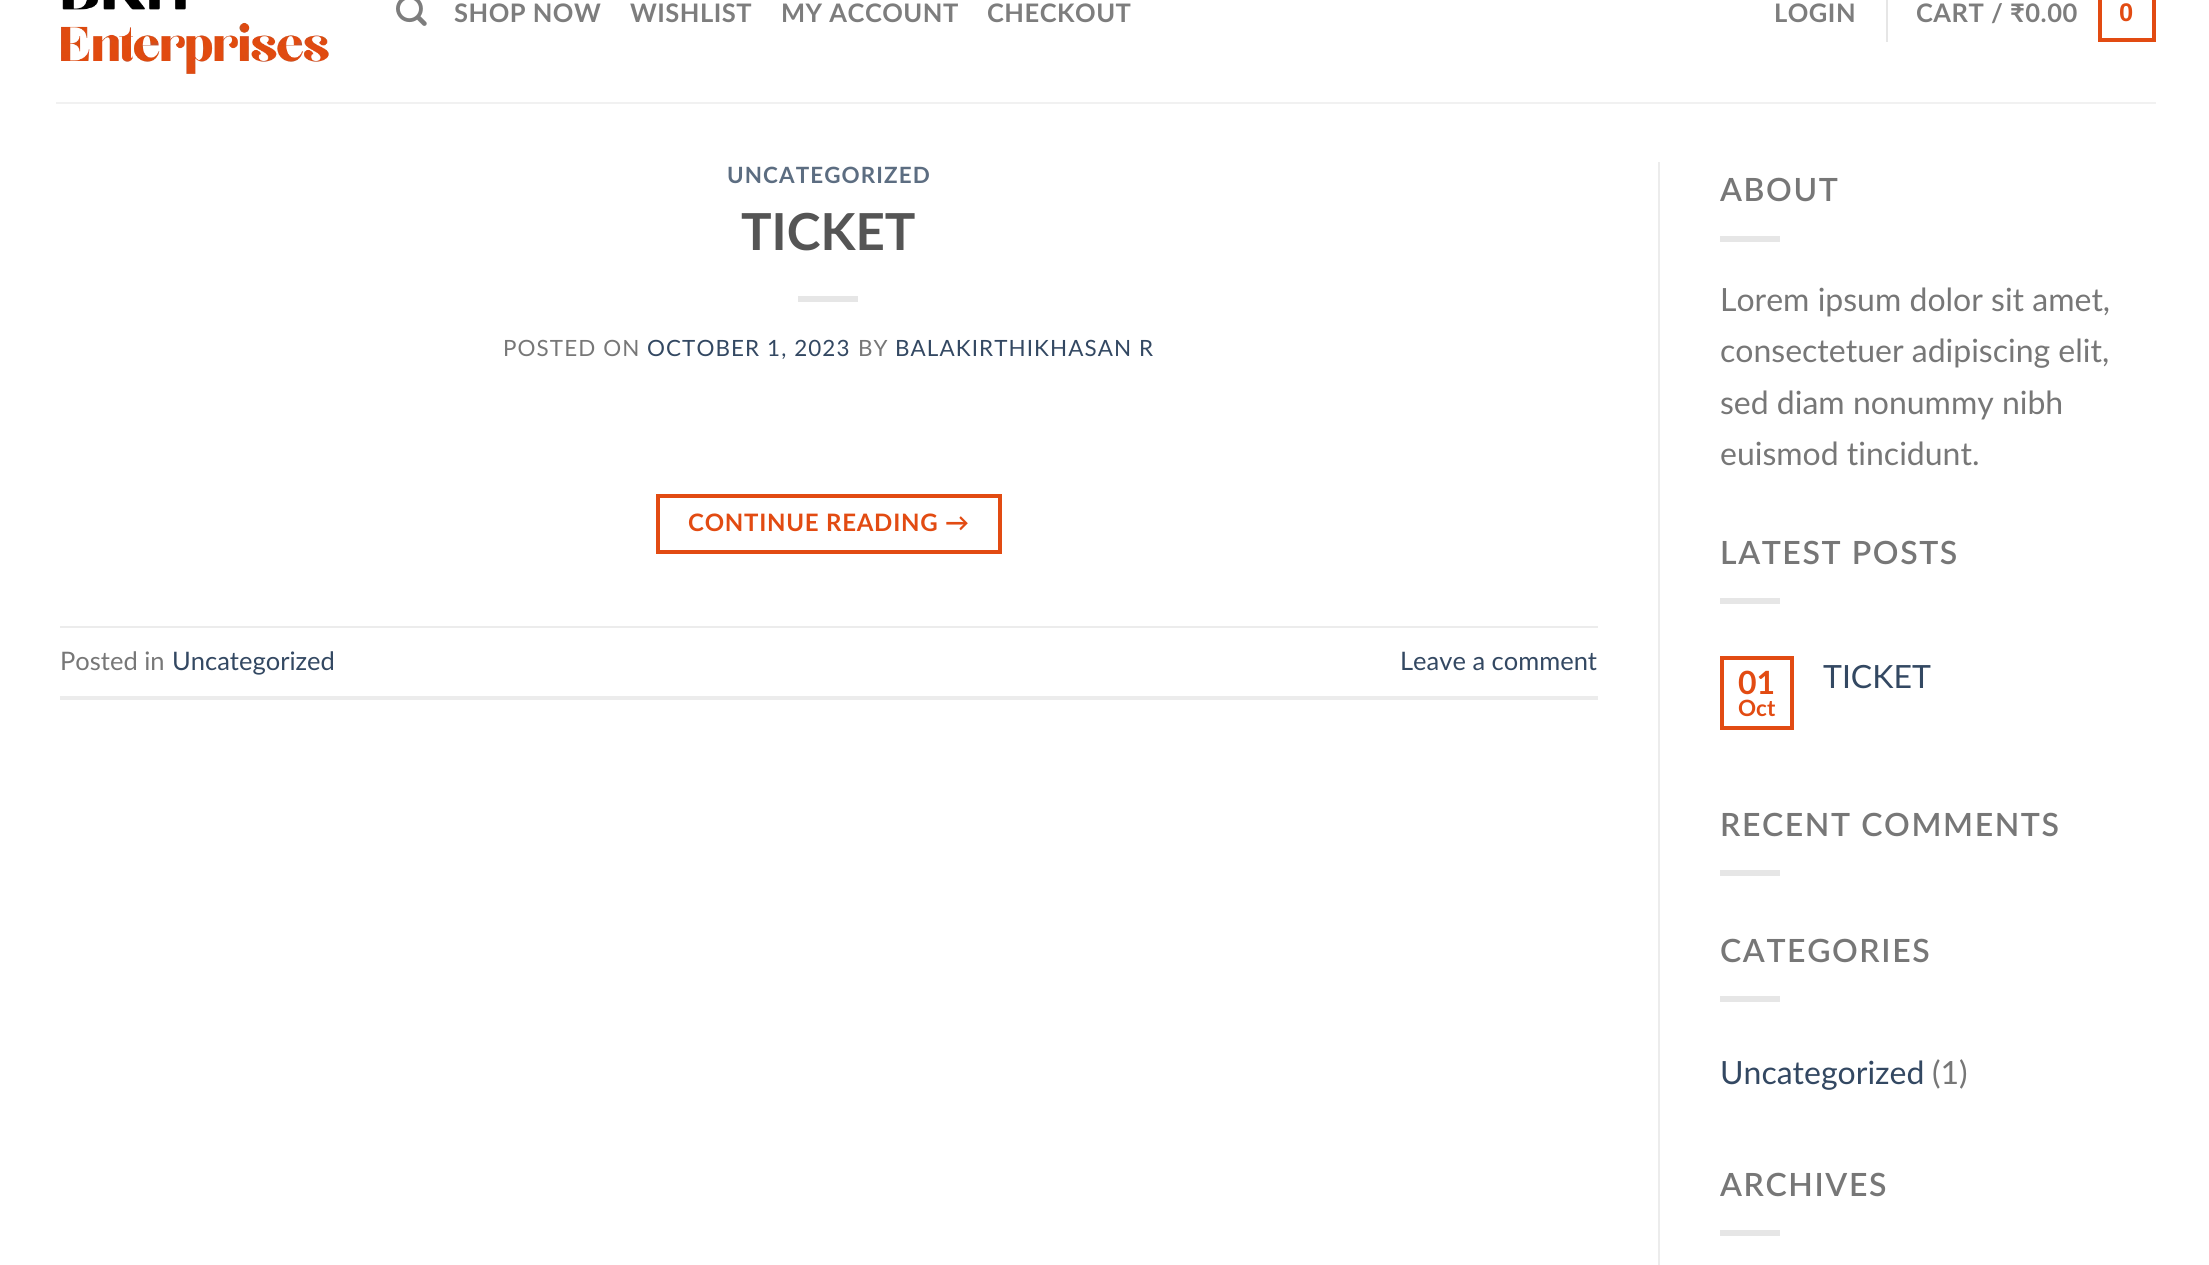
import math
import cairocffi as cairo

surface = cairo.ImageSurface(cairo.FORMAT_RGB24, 2209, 1265)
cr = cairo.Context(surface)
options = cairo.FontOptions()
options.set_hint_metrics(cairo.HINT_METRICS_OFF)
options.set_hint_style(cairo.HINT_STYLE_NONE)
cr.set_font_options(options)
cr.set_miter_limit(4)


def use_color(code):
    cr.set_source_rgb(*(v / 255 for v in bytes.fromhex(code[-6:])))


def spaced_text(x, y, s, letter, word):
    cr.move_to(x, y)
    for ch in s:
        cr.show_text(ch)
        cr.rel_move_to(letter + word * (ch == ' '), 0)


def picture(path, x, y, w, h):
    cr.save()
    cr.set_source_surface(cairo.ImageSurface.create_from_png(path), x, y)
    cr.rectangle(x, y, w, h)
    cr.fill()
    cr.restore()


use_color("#ffffff")
cr.paint()
picture("img1.png", 61, 0, 268, 74)
picture("img2.png", 396, 0, 31, 26)
cr.select_font_face("Lato", cairo.FONT_SLANT_NORMAL, cairo.FONT_WEIGHT_BOLD)
cr.set_font_size(25.5)
use_color("#7d7d7d")
spaced_text(454, 22, "SHOP NOW", 0.5, 0)
spaced_text(630, 22, "WISHLIST", 0.5, 0)
spaced_text(781, 22, "MY ACCOUNT", 0.5, 0)
spaced_text(987, 22, "CHECKOUT", 0.5, 0)
spaced_text(1774, 22, "LOGIN", 0.5, 0)
use_color("#e6e6e6")
cr.rectangle(1886, 0, 2, 42)
cr.fill()
use_color("#7d7d7d")
spaced_text(1916, 22, "CART / ₹0.00", 0.5, 0)
cr.rectangle(2100, -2, 54, 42)
use_color("#e24b12")
cr.set_line_width(4)
cr.stroke()
cr.select_font_face("Liberation Sans", cairo.FONT_SLANT_NORMAL, cairo.FONT_WEIGHT_BOLD)
spaced_text(2119, 21, "0", 0.5, 0)
use_color("#f1f1f1")
cr.rectangle(56, 102, 2100, 2)
cr.fill()
cr.select_font_face("Lato", cairo.FONT_SLANT_NORMAL, cairo.FONT_WEIGHT_BOLD)
cr.set_font_size(22.4)
use_color("#5c6d81")
spaced_text(727, 183, "UNCATEGORIZED", 1.1, 0)
cr.set_font_size(51)
use_color("#555555")
cr.move_to(741, 250)
cr.show_text("TICKET")
use_color("#e6e6e6")
cr.rectangle(798, 296, 60, 6)
cr.fill()
cr.select_font_face("Lato")
cr.set_font_size(22.4)
use_color("#777777")
spaced_text(503, 356, "POSTED ON", 1.1, 0)
use_color("#334862")
spaced_text(647, 356, "OCTOBER 1, 2023", 1.1, 0)
use_color("#777777")
spaced_text(858, 356, "BY", 1.1, 0)
use_color("#334862")
spaced_text(895, 356, "BALAKIRTHIKHASAN R", 1.1, 0)
cr.rectangle(658, 496, 342, 56)
use_color("#e24b12")
cr.stroke()
cr.select_font_face("Lato", cairo.FONT_SLANT_NORMAL, cairo.FONT_WEIGHT_BOLD)
cr.set_font_size(24)
spaced_text(688, 531, "CONTINUE READING →", 0.75, 0)
use_color("#ececec")
cr.rectangle(60, 626, 1538, 2)
cr.fill()
cr.rectangle(60, 696, 1538, 4)
cr.fill()
cr.select_font_face("Lato")
cr.set_font_size(25.5)
use_color("#777777")
cr.move_to(60, 670)
cr.show_text("Posted in")
use_color("#334862")
cr.move_to(172, 670)
cr.show_text("Uncategorized")
cr.move_to(1400, 670)
cr.show_text("Leave a comment")
use_color("#ececec")
cr.rectangle(1658, 162, 2, 1103)
cr.fill()
cr.select_font_face("Lato SemiBold")
cr.set_font_size(32)
use_color("#777777")
spaced_text(1720, 201, "ABOUT", 1.6, 0)
use_color("#e6e6e6")
cr.rectangle(1720, 236, 60, 6)
cr.fill()
cr.select_font_face("Lato")
use_color("#777777")
cr.move_to(1720, 311)
cr.show_text("Lorem ipsum dolor sit amet,")
cr.move_to(1720, 362)
cr.show_text("consectetuer adipiscing elit,")
cr.move_to(1720, 414)
cr.show_text("sed diam nonummy nibh")
cr.move_to(1720, 465)
cr.show_text("euismod tincidunt.")
cr.select_font_face("Lato SemiBold")
spaced_text(1720, 564, "LATEST POSTS", 1.6, 0)
use_color("#e6e6e6")
cr.rectangle(1720, 598, 60, 6)
cr.fill()
cr.rectangle(1722, 658, 70, 70)
use_color("#e24b12")
cr.stroke()
cr.select_font_face("Lato", cairo.FONT_SLANT_NORMAL, cairo.FONT_WEIGHT_BOLD)
cr.move_to(1738, 694)
cr.show_text("01")
cr.set_font_size(22.4)
cr.move_to(1738, 716)
cr.show_text("Oct")
cr.select_font_face("Lato")
cr.set_font_size(32)
use_color("#334862")
cr.move_to(1823, 688)
cr.show_text("TICKET")
cr.select_font_face("Lato SemiBold")
use_color("#777777")
spaced_text(1720, 836, "RECENT COMMENTS", 1.6, 0)
use_color("#e6e6e6")
cr.rectangle(1720, 870, 60, 6)
cr.fill()
use_color("#777777")
spaced_text(1720, 962, "CATEGORIES", 1.6, 0)
use_color("#e6e6e6")
cr.rectangle(1720, 996, 60, 6)
cr.fill()
cr.select_font_face("Lato")
use_color("#334862")
cr.move_to(1720, 1084)
cr.show_text("Uncategorized")
use_color("#777777")
cr.move_to(1932, 1084)
cr.show_text("(1)")
cr.select_font_face("Lato SemiBold")
spaced_text(1720, 1196, "ARCHIVES", 1.6, 0)
use_color("#e6e6e6")
cr.rectangle(1720, 1230, 60, 6)
cr.fill()
surface.write_to_png("result.png")
